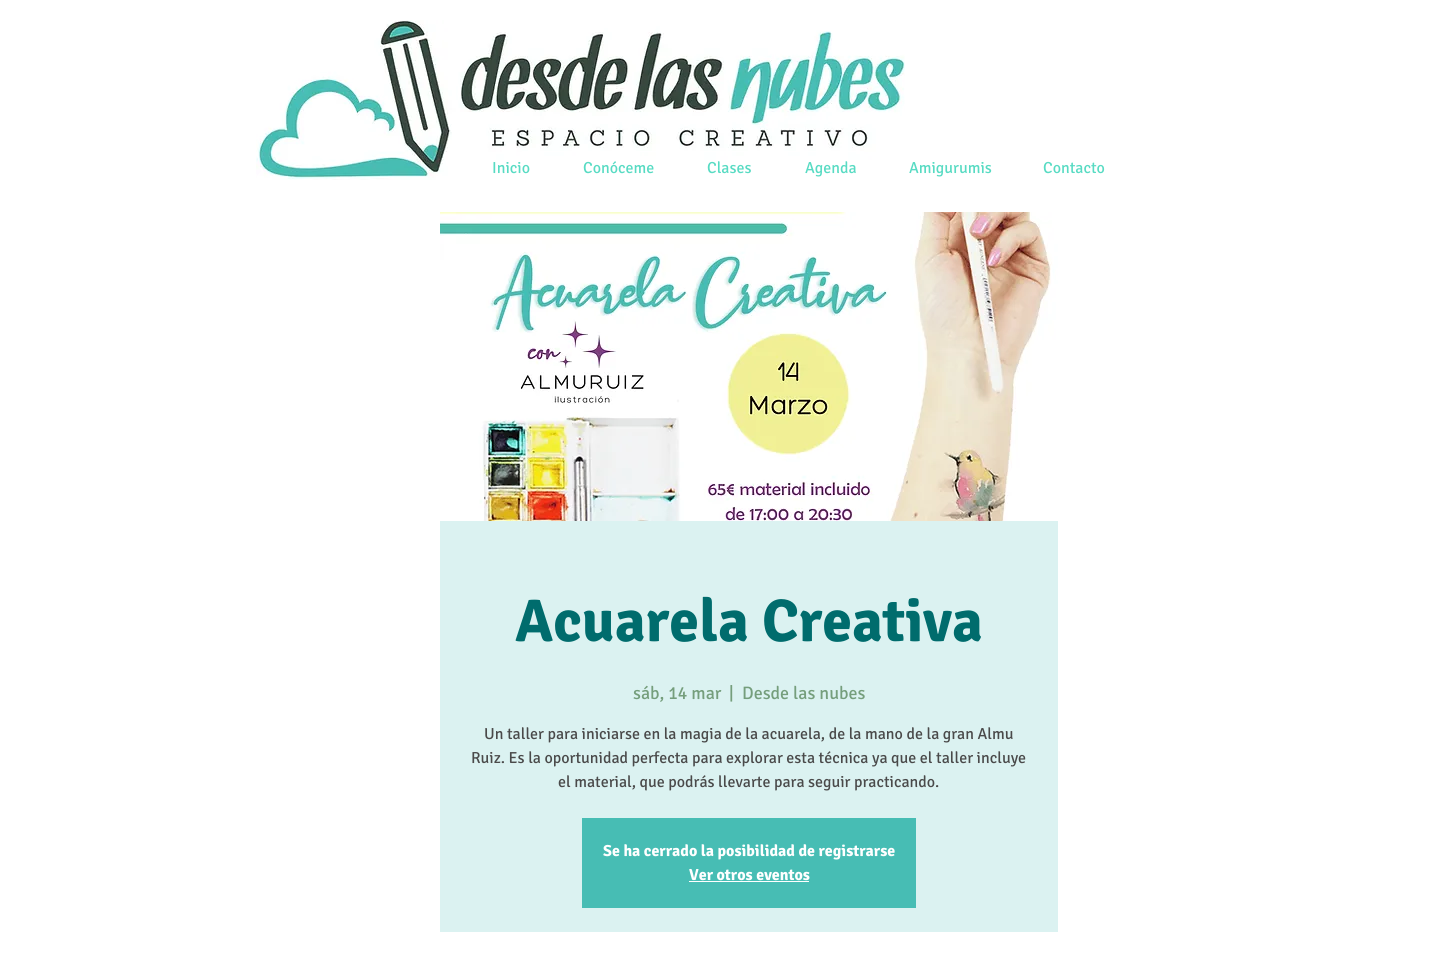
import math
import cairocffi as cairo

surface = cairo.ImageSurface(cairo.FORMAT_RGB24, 1452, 978)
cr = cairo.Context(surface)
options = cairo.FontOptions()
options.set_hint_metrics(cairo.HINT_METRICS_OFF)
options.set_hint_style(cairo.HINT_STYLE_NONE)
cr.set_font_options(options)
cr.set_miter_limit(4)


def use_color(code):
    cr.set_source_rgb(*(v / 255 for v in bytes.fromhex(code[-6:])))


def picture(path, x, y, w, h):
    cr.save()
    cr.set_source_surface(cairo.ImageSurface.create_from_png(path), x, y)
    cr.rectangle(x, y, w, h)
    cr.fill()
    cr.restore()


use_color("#ffffff")
cr.paint()
picture("img1.png", 256, 20, 649, 160)
use_color("#ffffff")
cr.rectangle(522, 151, 342, 1)
cr.fill()
cr.select_font_face("Signika")
cr.set_font_size(16)
use_color("#58dbc3")
cr.move_to(492, 173)
cr.show_text("Inicio")
cr.move_to(583, 173)
cr.show_text("Conóceme")
cr.move_to(707, 173)
cr.show_text("Clases")
cr.move_to(805, 173)
cr.show_text("Agenda")
cr.move_to(909, 173)
cr.show_text("Amigurumis")
cr.move_to(1043, 173)
cr.show_text("Contacto")
use_color("#dbf2f1")
cr.rectangle(440, 521, 618, 411)
cr.fill()
picture("img2.png", 440, 212, 618, 309)
cr.select_font_face("Signika", cairo.FONT_SLANT_NORMAL, cairo.FONT_WEIGHT_BOLD)
cr.set_font_size(60)
use_color("#006c6d")
cr.move_to(515, 641)
cr.show_text("Acuarela Creativa")
cr.select_font_face("Signika")
cr.set_font_size(18)
use_color("#759e7c")
cr.move_to(633, 699)
cr.show_text("sáb, 14 mar")
cr.move_to(729, 699)
cr.show_text("|")
cr.move_to(742, 699)
cr.show_text("Desde las nubes")
cr.set_font_size(16)
use_color("#4a4a4a")
cr.move_to(484, 739)
cr.show_text("Un taller para iniciarse en la magia de la acuarela, de la mano de la gran Almu")
cr.move_to(471, 763)
cr.show_text("Ruiz. Es la oportunidad perfecta para explorar esta técnica ya que el taller incluye")
cr.move_to(558, 787)
cr.show_text("el material, que podrás llevarte para seguir practicando.")
use_color("#47bdb4")
cr.rectangle(582, 818, 334, 90)
cr.fill()
cr.select_font_face("Signika", cairo.FONT_SLANT_NORMAL, cairo.FONT_WEIGHT_BOLD)
use_color("#ffffff")
cr.move_to(603, 856)
cr.show_text("Se ha cerrado la posibilidad de registrarse")
cr.move_to(689, 880)
cr.show_text("Ver otros eventos")
cr.rectangle(689, 881, 120, 1)
cr.fill()
surface.write_to_png("result.png")
